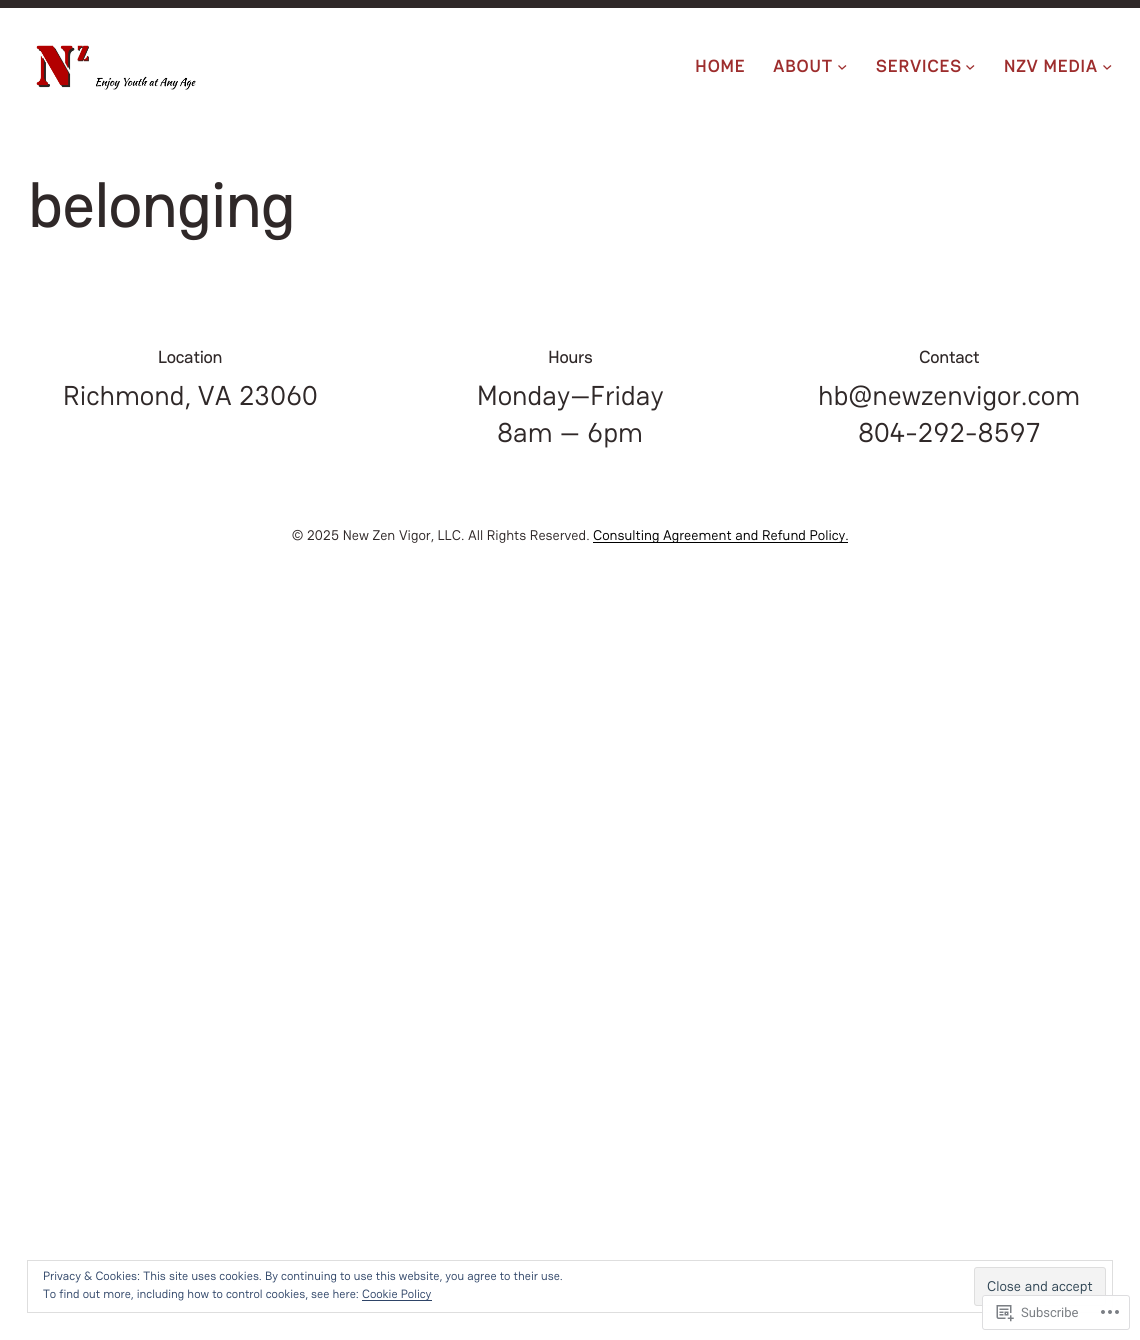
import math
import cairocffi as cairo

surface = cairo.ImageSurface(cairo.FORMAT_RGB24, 1140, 1340)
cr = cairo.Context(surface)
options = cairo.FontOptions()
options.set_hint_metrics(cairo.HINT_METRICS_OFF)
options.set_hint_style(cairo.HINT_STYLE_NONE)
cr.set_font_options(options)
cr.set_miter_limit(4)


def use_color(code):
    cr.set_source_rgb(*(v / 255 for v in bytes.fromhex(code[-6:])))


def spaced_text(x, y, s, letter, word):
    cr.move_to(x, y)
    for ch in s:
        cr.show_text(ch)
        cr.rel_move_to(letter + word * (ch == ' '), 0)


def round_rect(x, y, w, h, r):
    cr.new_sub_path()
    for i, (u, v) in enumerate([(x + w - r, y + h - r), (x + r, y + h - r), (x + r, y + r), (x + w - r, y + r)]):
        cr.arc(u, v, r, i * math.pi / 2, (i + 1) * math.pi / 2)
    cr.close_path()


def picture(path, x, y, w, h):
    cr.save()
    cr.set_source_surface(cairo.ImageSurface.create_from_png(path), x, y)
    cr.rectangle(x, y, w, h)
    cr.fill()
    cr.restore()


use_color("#ffffff")
cr.paint()
use_color("#2f2828")
cr.rectangle(0, 0, 1140, 8)
cr.fill()
picture("img1.png", 36, 45, 160, 45)
cr.select_font_face("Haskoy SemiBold")
cr.set_font_size(17.5)
use_color("#9d2d2d")
spaced_text(695, 72, "HOME", 0.75, 0)
spaced_text(773, 72, "ABOUT", 0.75, 0)
cr.new_path()
cr.move_to(838.5, 65.5)
cr.line_to(842, 69)
cr.line_to(846, 65.5)
cr.set_line_width(1.3)
cr.stroke()
spaced_text(876, 72, "SERVICES", 0.75, 0)
cr.new_path()
cr.move_to(966.5, 65.5)
cr.line_to(970, 69)
cr.line_to(974, 65.5)
cr.stroke()
spaced_text(1004, 72, "NZV MEDIA", 0.75, 0)
cr.new_path()
cr.move_to(1103.5, 65.5)
cr.line_to(1107, 69)
cr.line_to(1111, 65.5)
cr.stroke()
cr.select_font_face("Haskoy Medium")
cr.set_font_size(64)
use_color("#2f2828")
spaced_text(28, 227, "belonging", -0.75, 0)
cr.set_font_size(17.5)
spaced_text(158, 363, "Location", -0.25, 0)
cr.select_font_face("Haskoy")
cr.set_font_size(27.25)
cr.move_to(63, 405)
cr.show_text("Richmond, VA 23060")
cr.select_font_face("Haskoy Medium")
cr.set_font_size(17.5)
spaced_text(548, 363, "Hours", -0.25, 0)
cr.select_font_face("Haskoy")
cr.set_font_size(27.25)
cr.move_to(477, 405)
cr.show_text("Monday—Friday")
cr.move_to(497, 442)
cr.show_text("8am — 6pm")
cr.select_font_face("Haskoy Medium")
cr.set_font_size(17.5)
spaced_text(919, 363, "Contact", -0.25, 0)
cr.select_font_face("Haskoy")
cr.set_font_size(27.25)
cr.move_to(818, 405)
cr.show_text("hb@newzenvigor.com")
cr.move_to(858, 442)
cr.show_text("804-292-8597")
cr.set_font_size(14)
cr.move_to(292, 540)
cr.show_text("© 2025 New Zen Vigor, LLC. All Rights Reserved.")
use_color("#000000")
cr.rectangle(593, 542, 255, 1)
cr.fill()
cr.move_to(593, 540)
cr.show_text("Consulting Agreement and Refund Policy.")
cr.rectangle(27.5, 1260.5, 1085, 52)
use_color("#dedede")
cr.set_line_width(1)
cr.stroke()
cr.set_font_size(12)
use_color("#2e4467")
cr.move_to(43, 1280)
cr.show_text("Privacy & Cookies: This site uses cookies. By continuing to use this website, you agree to their use.")
cr.move_to(43, 1298)
cr.show_text("To find out more, including how to control cookies, see here:")
cr.rectangle(362, 1300, 70, 1)
cr.fill()
cr.move_to(362, 1298)
cr.show_text("Cookie Policy")
use_color("#f3f3f3")
round_rect(974.5, 1267.5, 131, 38, 2.5)
cr.fill_preserve()
use_color("#dedede")
cr.stroke()
cr.set_font_size(14)
use_color("#2e4453")
cr.move_to(987, 1291)
cr.show_text("Close and accept")
cr.set_source_rgba(1, 1, 1, 0.98)
round_rect(982, 1295, 148, 35, 3)
cr.fill()
round_rect(982.5, 1295.5, 147, 34, 2.5)
cr.set_source_rgba(0.863, 0.863, 0.871, 0.98)
cr.stroke()
picture("img2.png", 996, 1305, 18, 17)
cr.select_font_face("Roboto")
cr.set_font_size(13)
use_color("#7b7f84")
cr.move_to(1021, 1317)
cr.show_text("Subscribe")
picture("img3.png", 1101, 1310, 18, 4)
surface.write_to_png("result.png")
